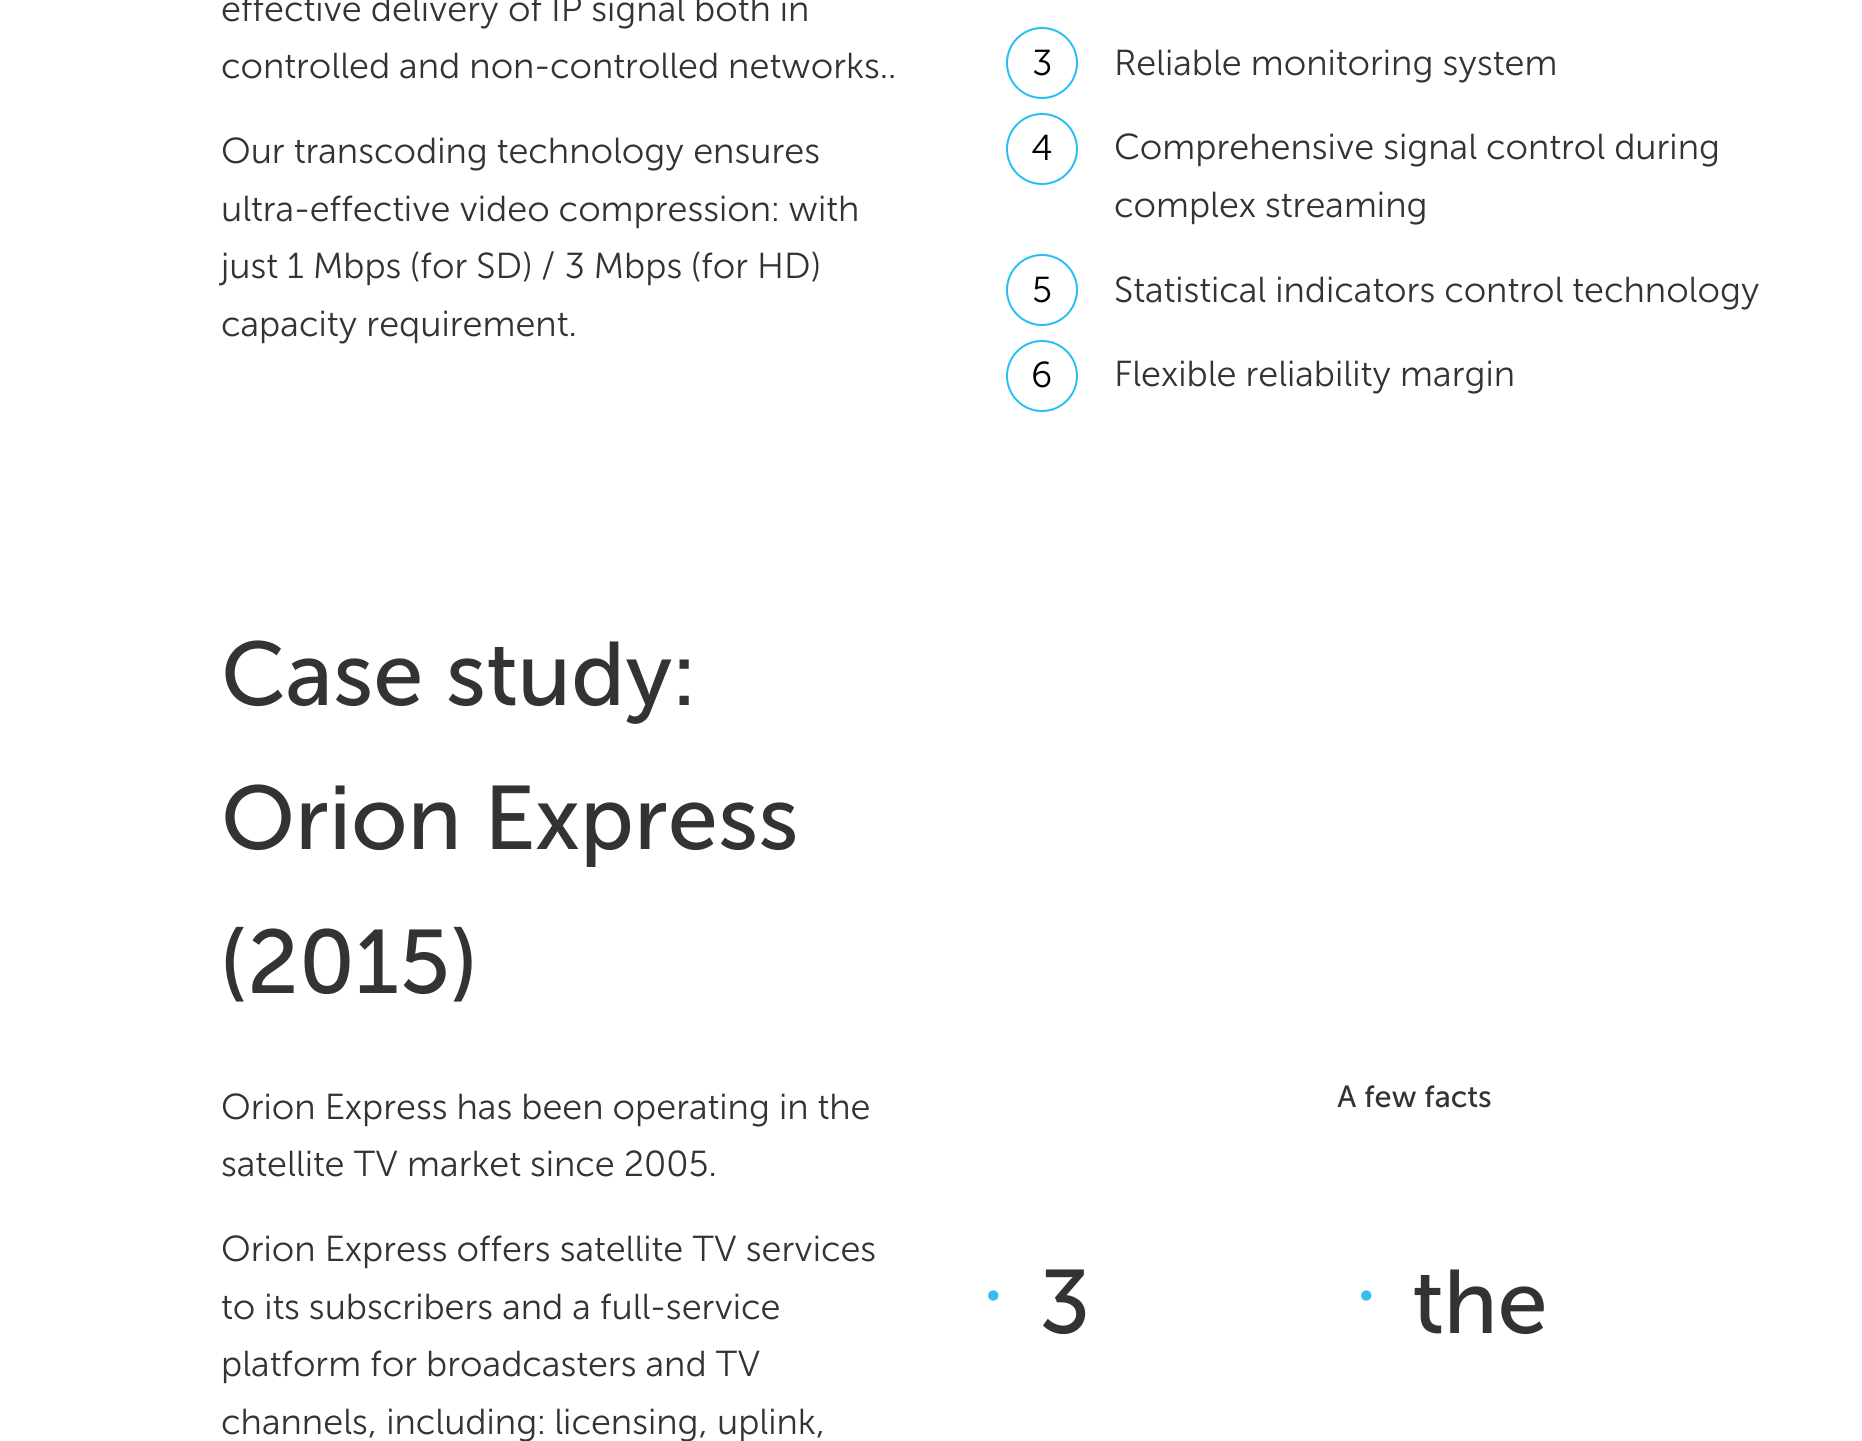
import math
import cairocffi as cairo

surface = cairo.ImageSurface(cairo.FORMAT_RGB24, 1862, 1441)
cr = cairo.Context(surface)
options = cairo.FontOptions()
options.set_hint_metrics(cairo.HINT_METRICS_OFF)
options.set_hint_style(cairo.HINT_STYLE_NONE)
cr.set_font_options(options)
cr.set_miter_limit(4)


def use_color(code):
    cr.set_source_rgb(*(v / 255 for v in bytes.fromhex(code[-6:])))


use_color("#ffffff")
cr.paint()
cr.select_font_face("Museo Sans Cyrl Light")
cr.set_font_size(36)
use_color("#333333")
cr.move_to(221, 21)
cr.show_text("effective delivery of IP signal both in")
cr.move_to(221, 78)
cr.show_text("controlled and non-controlled networks..")
cr.move_to(221, 163)
cr.show_text("Our transcoding technology ensures")
cr.move_to(221, 221)
cr.show_text("ultra-effective video compression: with")
cr.move_to(221, 278)
cr.show_text("just 1 Mbps (for SD) / 3 Mbps (for HD)")
cr.move_to(221, 336)
cr.show_text("capacity requirement.")
cr.new_path()
cr.arc(1042, 63, 35, 0, 2 * math.pi)
use_color("#23bdf3")
cr.stroke()
use_color("#000000")
cr.move_to(1032, 75)
cr.show_text("3")
use_color("#333333")
cr.move_to(1114, 75)
cr.show_text("Reliable monitoring system")
cr.new_path()
cr.arc(1042, 149, 35, 0, 2 * math.pi)
use_color("#23bdf3")
cr.stroke()
use_color("#000000")
cr.move_to(1031, 160)
cr.show_text("4")
use_color("#333333")
cr.move_to(1114, 159)
cr.show_text("Comprehensive signal control during")
cr.move_to(1114, 217)
cr.show_text("complex streaming")
cr.new_path()
cr.arc(1042, 290, 35, 0, 2 * math.pi)
use_color("#23bdf3")
cr.stroke()
use_color("#000000")
cr.move_to(1032, 302)
cr.show_text("5")
use_color("#333333")
cr.move_to(1114, 302)
cr.show_text("Statistical indicators control technology")
cr.new_path()
cr.arc(1042, 376, 35, 0, 2 * math.pi)
use_color("#23bdf3")
cr.stroke()
use_color("#000000")
cr.move_to(1031, 387)
cr.show_text("6")
use_color("#333333")
cr.move_to(1114, 386)
cr.show_text("Flexible reliability margin")
cr.select_font_face("Museo Sans Cyrl")
cr.set_font_size(90)
cr.move_to(221, 705)
cr.show_text("Case study:")
cr.move_to(221, 849)
cr.show_text("Orion Express")
cr.move_to(221, 993)
cr.show_text("(2015)")
cr.select_font_face("Museo Sans Cyrl Light")
cr.set_font_size(36)
cr.move_to(221, 1119)
cr.show_text("Orion Express has been operating in the")
cr.move_to(221, 1176)
cr.show_text("satellite TV market since 2005.")
cr.move_to(221, 1261)
cr.show_text("Orion Express offers satellite TV services")
cr.move_to(221, 1319)
cr.show_text("to its subscribers and a full-service")
cr.move_to(221, 1376)
cr.show_text("platform for broadcasters and TV")
cr.move_to(221, 1434)
cr.show_text("channels, including: licensing, uplink,")
cr.select_font_face("Museo Sans Cyrl")
cr.set_font_size(30.5)
cr.move_to(1337, 1107)
cr.show_text("A few facts")
cr.select_font_face("Museo Sans Cyrl Light")
cr.set_font_size(36)
use_color("#33beef")
cr.move_to(985, 1306)
cr.show_text("•")
cr.select_font_face("Museo Sans Cyrl")
cr.set_font_size(90)
use_color("#333333")
cr.move_to(1039, 1333)
cr.show_text("3")
cr.select_font_face("Museo Sans Cyrl Light")
cr.set_font_size(36)
use_color("#33beef")
cr.move_to(1358, 1306)
cr.show_text("•")
cr.select_font_face("Museo Sans Cyrl")
cr.set_font_size(90)
use_color("#333333")
cr.move_to(1412, 1333)
cr.show_text("the")
surface.write_to_png("result.png")
